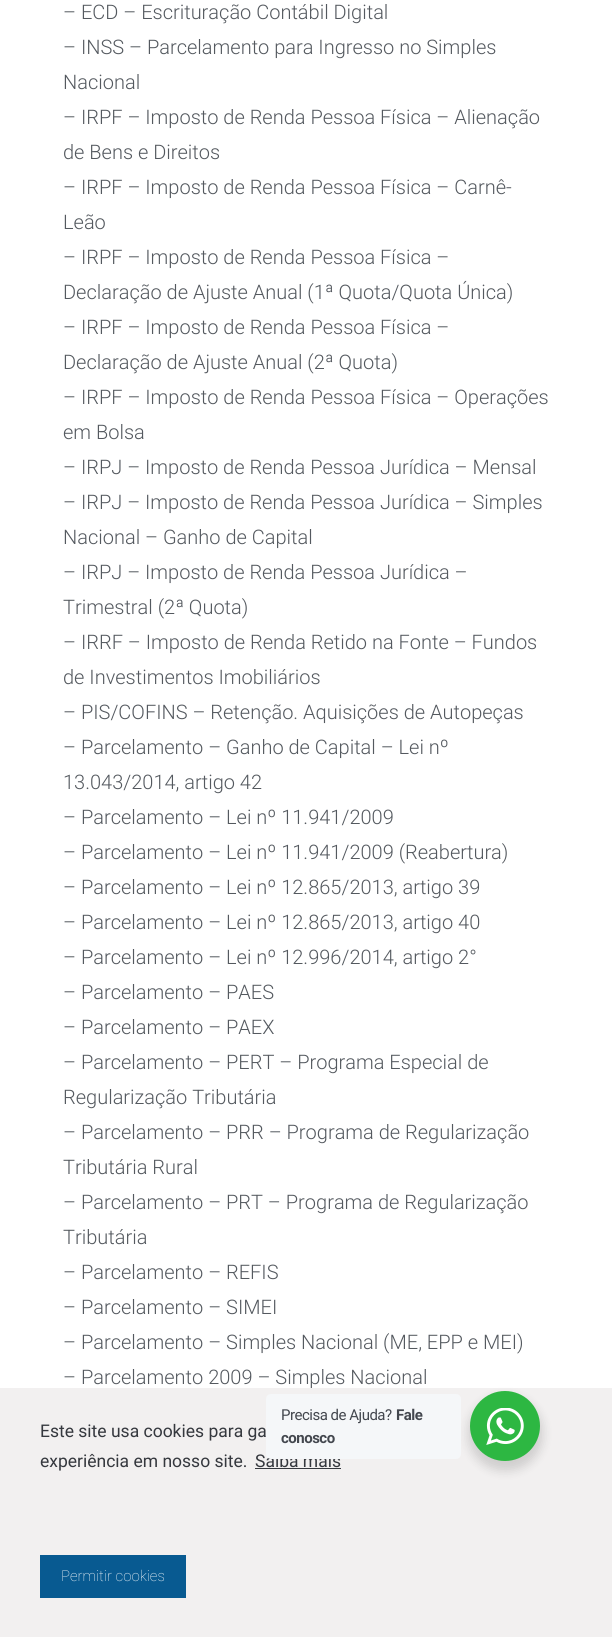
import math
import cairocffi as cairo

surface = cairo.ImageSurface(cairo.FORMAT_RGB24, 612, 1637)
cr = cairo.Context(surface)
options = cairo.FontOptions()
options.set_hint_metrics(cairo.HINT_METRICS_OFF)
options.set_hint_style(cairo.HINT_STYLE_NONE)
cr.set_font_options(options)
cr.set_miter_limit(4)


def use_color(code):
    cr.set_source_rgb(*(v / 255 for v in bytes.fromhex(code[-6:])))


def spaced_text(x, y, s, letter, word):
    cr.move_to(x, y)
    for ch in s:
        cr.show_text(ch)
        cr.rel_move_to(letter + word * (ch == ' '), 0)


def round_rect(x, y, w, h, r):
    cr.new_sub_path()
    for i, (u, v) in enumerate([(x + w - r, y + h - r), (x + r, y + h - r), (x + r, y + r), (x + w - r, y + r)]):
        cr.arc(u, v, r, i * math.pi / 2, (i + 1) * math.pi / 2)
    cr.close_path()


def shadow(x, y, w, h, r, blur, alpha):
    cr.push_group_with_content(cairo.CONTENT_ALPHA)
    cr.set_operator(cairo.OPERATOR_SOURCE)
    for i in range(15, -16, -2):
        e = blur * i / 6
        if min(w, h) + 2 * e > 0:
            cr.set_source_rgba(0, 0, 0, alpha * math.erfc((i - 1) / 8.5) / 2)
            round_rect(x - e, y - e, w + 2 * e, h + 2 * e, max(0, min(r + e + blur * .6, min(w, h) / 2 + e)))
            cr.fill()
    cr.mask(cr.pop_group())


def picture(path, x, y, w, h):
    cr.save()
    cr.set_source_surface(cairo.ImageSurface.create_from_png(path), x, y)
    cr.rectangle(x, y, w, h)
    cr.fill()
    cr.restore()


use_color("#ffffff")
cr.paint()
cr.select_font_face("Roboto Light")
cr.set_font_size(20)
use_color("#54595f")
cr.move_to(63, 19)
cr.show_text("– ECD – Escrituração Contábil Digital")
cr.move_to(63, 54)
cr.show_text("– INSS – Parcelamento para Ingresso no Simples")
cr.move_to(63, 89)
cr.show_text("Nacional")
cr.move_to(63, 124)
cr.show_text("– IRPF – Imposto de Renda Pessoa Física – Alienação")
cr.move_to(63, 159)
cr.show_text("de Bens e Direitos")
cr.move_to(63, 194)
cr.show_text("– IRPF – Imposto de Renda Pessoa Física – Carnê-")
cr.move_to(63, 229)
cr.show_text("Leão")
cr.move_to(63, 264)
cr.show_text("– IRPF – Imposto de Renda Pessoa Física –")
cr.move_to(63, 299)
cr.show_text("Declaração de Ajuste Anual (1ª Quota/Quota Única)")
cr.move_to(63, 334)
cr.show_text("– IRPF – Imposto de Renda Pessoa Física –")
cr.move_to(63, 369)
cr.show_text("Declaração de Ajuste Anual (2ª Quota)")
cr.move_to(63, 404)
cr.show_text("– IRPF – Imposto de Renda Pessoa Física – Operações")
cr.move_to(63, 439)
cr.show_text("em Bolsa")
cr.move_to(63, 474)
cr.show_text("– IRPJ – Imposto de Renda Pessoa Jurídica – Mensal")
cr.move_to(63, 509)
cr.show_text("– IRPJ – Imposto de Renda Pessoa Jurídica – Simples")
cr.move_to(63, 544)
cr.show_text("Nacional – Ganho de Capital")
cr.move_to(63, 579)
cr.show_text("– IRPJ – Imposto de Renda Pessoa Jurídica –")
cr.move_to(63, 614)
cr.show_text("Trimestral (2ª Quota)")
cr.move_to(63, 649)
cr.show_text("– IRRF – Imposto de Renda Retido na Fonte – Fundos")
cr.move_to(63, 684)
cr.show_text("de Investimentos Imobiliários")
cr.move_to(63, 719)
cr.show_text("– PIS/COFINS – Retenção. Aquisições de Autopeças")
cr.move_to(63, 754)
cr.show_text("– Parcelamento – Ganho de Capital – Lei nº")
cr.move_to(63, 789)
cr.show_text("13.043/2014, artigo 42")
cr.move_to(63, 824)
cr.show_text("– Parcelamento – Lei nº 11.941/2009")
cr.move_to(63, 859)
cr.show_text("– Parcelamento – Lei nº 11.941/2009 (Reabertura)")
cr.move_to(63, 894)
cr.show_text("– Parcelamento – Lei nº 12.865/2013, artigo 39")
cr.move_to(63, 929)
cr.show_text("– Parcelamento – Lei nº 12.865/2013, artigo 40")
cr.move_to(63, 964)
cr.show_text("– Parcelamento – Lei nº 12.996/2014, artigo 2°")
cr.move_to(63, 999)
cr.show_text("– Parcelamento – PAES")
cr.move_to(63, 1034)
cr.show_text("– Parcelamento – PAEX")
cr.move_to(63, 1069)
cr.show_text("– Parcelamento – PERT – Programa Especial de")
cr.move_to(63, 1104)
cr.show_text("Regularização Tributária")
cr.move_to(63, 1139)
cr.show_text("– Parcelamento – PRR – Programa de Regularização")
cr.move_to(63, 1174)
cr.show_text("Tributária Rural")
cr.move_to(63, 1209)
cr.show_text("– Parcelamento – PRT – Programa de Regularização")
cr.move_to(63, 1244)
cr.show_text("Tributária")
cr.move_to(63, 1279)
cr.show_text("– Parcelamento – REFIS")
cr.move_to(63, 1314)
cr.show_text("– Parcelamento – SIMEI")
cr.move_to(63, 1349)
cr.show_text("– Parcelamento – Simples Nacional (ME, EPP e MEI)")
cr.move_to(63, 1384)
cr.show_text("– Parcelamento 2009 – Simples Nacional")
use_color("#f2f0f0")
cr.rectangle(0, 1388, 612, 249)
cr.fill()
cr.select_font_face("Roboto")
cr.set_font_size(17.5)
use_color("#35383e")
cr.move_to(40, 1437)
cr.show_text("Este site usa cookies para ga")
cr.move_to(40, 1467)
cr.show_text("experiência em nosso site.")
cr.move_to(255, 1467)
cr.show_text("Saiba mais")
cr.rectangle(255, 1468, 86, 1)
cr.fill()
use_color("#085a91")
cr.rectangle(40, 1555, 146, 43)
cr.fill()
cr.select_font_face("Roboto Thin")
cr.set_font_size(15)
use_color("#ffffff")
cr.move_to(61, 1581)
cr.show_text("Permitir cookies")
use_color("#000000")
shadow(468, 1396, 75, 75, 37.5, 5, 0.14)
use_color("#f5f7f9")
round_rect(266, 1394, 195, 65, 5)
cr.fill()
cr.select_font_face("Roboto")
use_color("#43474e")
spaced_text(281, 1420, "Precisa de Ajuda?", -0.5, 0)
cr.select_font_face("Roboto", cairo.FONT_SLANT_NORMAL, cairo.FONT_WEIGHT_BOLD)
spaced_text(396, 1420, "Fale", -0.5, 0)
spaced_text(281, 1443, "conosco", -0.5, 0)
use_color("#2db742")
cr.new_path()
cr.arc(505, 1426, 35, 0, 2 * math.pi)
cr.fill()
picture("img1.png", 486, 1408, 38, 37)
surface.write_to_png("result.png")
